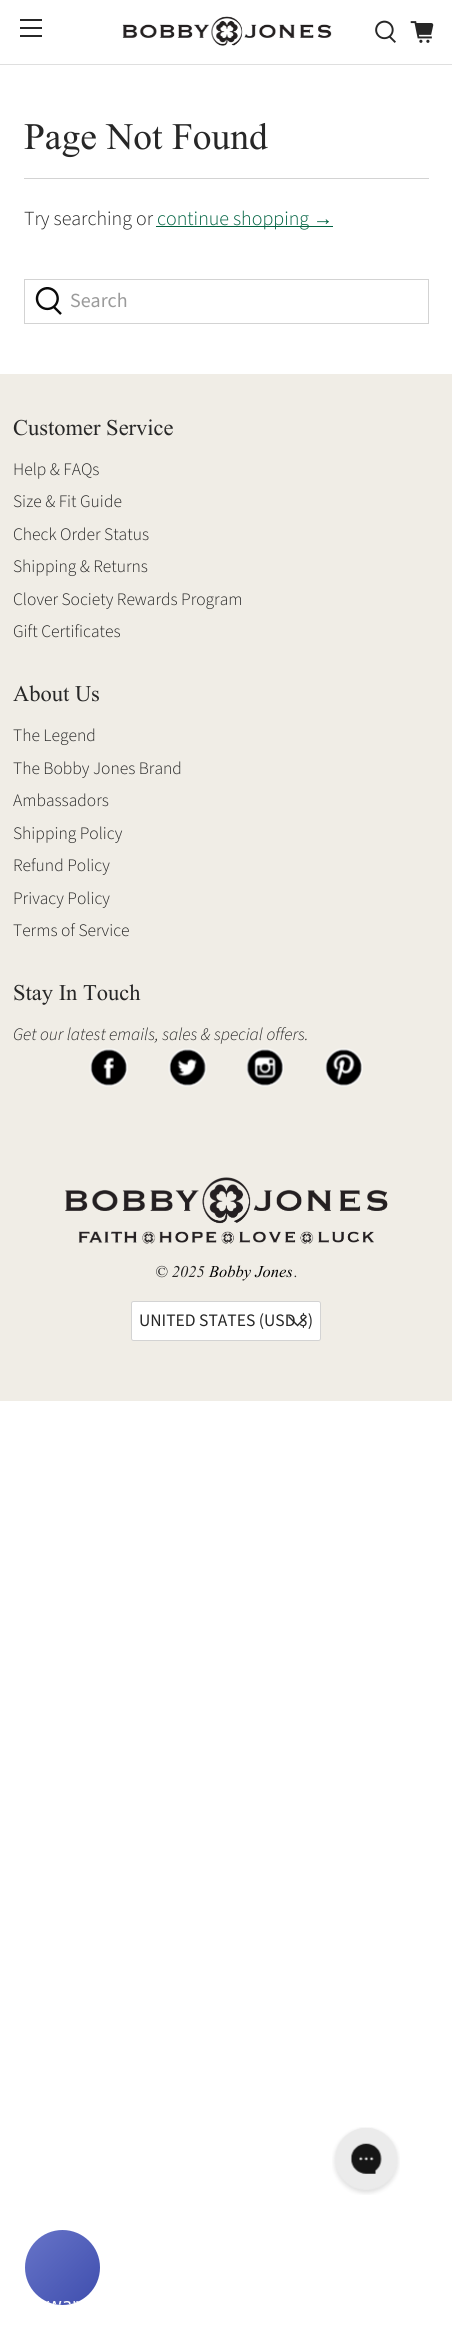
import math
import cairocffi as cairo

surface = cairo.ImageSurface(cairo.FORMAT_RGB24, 452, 2330)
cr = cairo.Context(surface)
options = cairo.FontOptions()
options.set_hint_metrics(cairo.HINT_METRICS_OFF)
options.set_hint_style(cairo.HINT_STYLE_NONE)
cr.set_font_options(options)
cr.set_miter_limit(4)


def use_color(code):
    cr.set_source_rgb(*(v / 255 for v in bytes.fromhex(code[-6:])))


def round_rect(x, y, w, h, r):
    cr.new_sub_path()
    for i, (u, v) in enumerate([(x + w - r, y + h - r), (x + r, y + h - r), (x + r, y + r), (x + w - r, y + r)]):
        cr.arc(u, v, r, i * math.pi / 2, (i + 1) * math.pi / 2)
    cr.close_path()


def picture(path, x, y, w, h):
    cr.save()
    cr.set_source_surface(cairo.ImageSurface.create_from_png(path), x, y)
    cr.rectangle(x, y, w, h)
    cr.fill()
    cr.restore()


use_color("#ffffff")
cr.paint()
use_color("#dfdfdf")
cr.rectangle(0, 64, 452, 1)
cr.fill()
use_color("#272727")
cr.rectangle(20, 19, 22, 2)
cr.fill()
cr.rectangle(20, 27, 22, 2)
cr.fill()
cr.rectangle(20, 35, 22, 2)
cr.fill()
picture("img1.png", 122, 16, 210, 30)
picture("img2.png", 375, 20, 21, 23)
picture("img3.png", 410, 21, 24, 22)
cr.select_font_face("Times New Roman")
cr.set_font_size(37.5)
cr.move_to(24, 149)
cr.show_text("Page Not Found")
use_color("#d3d3d3")
cr.rectangle(24, 178, 405, 1)
cr.fill()
cr.select_font_face("Source Sans Pro Light")
cr.set_font_size(20)
use_color("#272727")
cr.move_to(24, 225)
cr.show_text("Try searching or")
use_color("#006241")
cr.rectangle(156, 226, 177, 1)
cr.fill()
cr.move_to(157, 225)
cr.show_text("continue shopping")
cr.select_font_face("Liberation Sans")
cr.move_to(313, 225)
cr.show_text("→")
cr.rectangle(24.5, 279.5, 404, 44)
use_color("#d3d3d3")
cr.set_line_width(1)
cr.stroke()
picture("img4.png", 35, 287, 27, 28)
cr.select_font_face("Source Sans Pro")
use_color("#9b9b9b")
cr.move_to(70, 307)
cr.show_text("Search")
use_color("#f0ede6")
cr.rectangle(0, 374, 452, 1027)
cr.fill()
cr.select_font_face("Times New Roman")
cr.set_font_size(22.5)
use_color("#272727")
cr.move_to(13, 435)
cr.show_text("Customer Service")
cr.select_font_face("Source Sans Pro Light")
cr.set_font_size(17.5)
cr.move_to(13, 475)
cr.show_text("Help & FAQs")
cr.move_to(13, 507)
cr.show_text("Size & Fit Guide")
cr.move_to(13, 540)
cr.show_text("Check Order Status")
cr.move_to(13, 572)
cr.show_text("Shipping & Returns")
cr.move_to(13, 605)
cr.show_text("Clover Society Rewards Program")
cr.move_to(13, 637)
cr.show_text("Gift Certificates")
cr.select_font_face("Times New Roman")
cr.set_font_size(22.5)
cr.move_to(13, 701)
cr.show_text("About Us")
cr.select_font_face("Source Sans Pro Light")
cr.set_font_size(17.5)
cr.move_to(13, 741)
cr.show_text("The Legend")
cr.move_to(13, 774)
cr.show_text("The Bobby Jones Brand")
cr.move_to(13, 806)
cr.show_text("Ambassadors")
cr.move_to(13, 839)
cr.show_text("Shipping Policy")
cr.move_to(13, 871)
cr.show_text("Refund Policy")
cr.move_to(13, 904)
cr.show_text("Privacy Policy")
cr.move_to(13, 936)
cr.show_text("Terms of Service")
cr.select_font_face("Times New Roman")
cr.set_font_size(22.5)
cr.move_to(13, 1000)
cr.show_text("Stay In Touch")
cr.select_font_face("Source Sans Pro Light", cairo.FONT_SLANT_ITALIC)
cr.set_font_size(17.5)
cr.move_to(13, 1040)
cr.show_text("Get our latest emails, sales & special offers.")
picture("img5.png", 89, 1048, 39, 39)
picture("img6.png", 168, 1048, 39, 39)
picture("img7.png", 246, 1048, 38, 39)
picture("img8.png", 324, 1048, 39, 39)
picture("img9.png", 65, 1177, 323, 67)
cr.select_font_face("Times New Roman", cairo.FONT_SLANT_ITALIC)
cr.set_font_size(16.5)
cr.move_to(155, 1277)
cr.show_text("© 2025")
use_color("#000000")
cr.move_to(209, 1277)
cr.show_text("Bobby Jones")
use_color("#272727")
cr.move_to(294, 1277)
cr.show_text(".")
use_color("#ffffff")
round_rect(131.5, 1301.5, 189, 39, 2)
cr.fill_preserve()
use_color("#d3d3d3")
cr.stroke()
cr.select_font_face("Source Sans Pro")
cr.set_font_size(17.5)
use_color("#272727")
cr.move_to(139, 1326)
cr.show_text("UNITED STATES (USD $)")
cr.new_path()
cr.move_to(297.5, 1326.5)
cr.line_to(288, 1317)
cr.line_to(289, 1316)
cr.line_to(297.5, 1324.5)
cr.line_to(306, 1316)
cr.line_to(307, 1317)
cr.close_path()
cr.fill()
picture("img10.png", 332, 2127, 68, 68)
gradient = cairo.LinearGradient(25, 2230, 100, 2305)
gradient.add_color_stop_rgba(0, 0.404, 0.455, 0.784, 1)
gradient.add_color_stop_rgba(1, 0.247, 0.306, 0.682, 1)
cr.set_source(gradient)
cr.arc(62.5, 2267.5, 37.5, 0, 2 * math.pi)
cr.fill()
picture("img11.png", 47, 2301, 32, 4)
surface.write_to_png("result.png")
